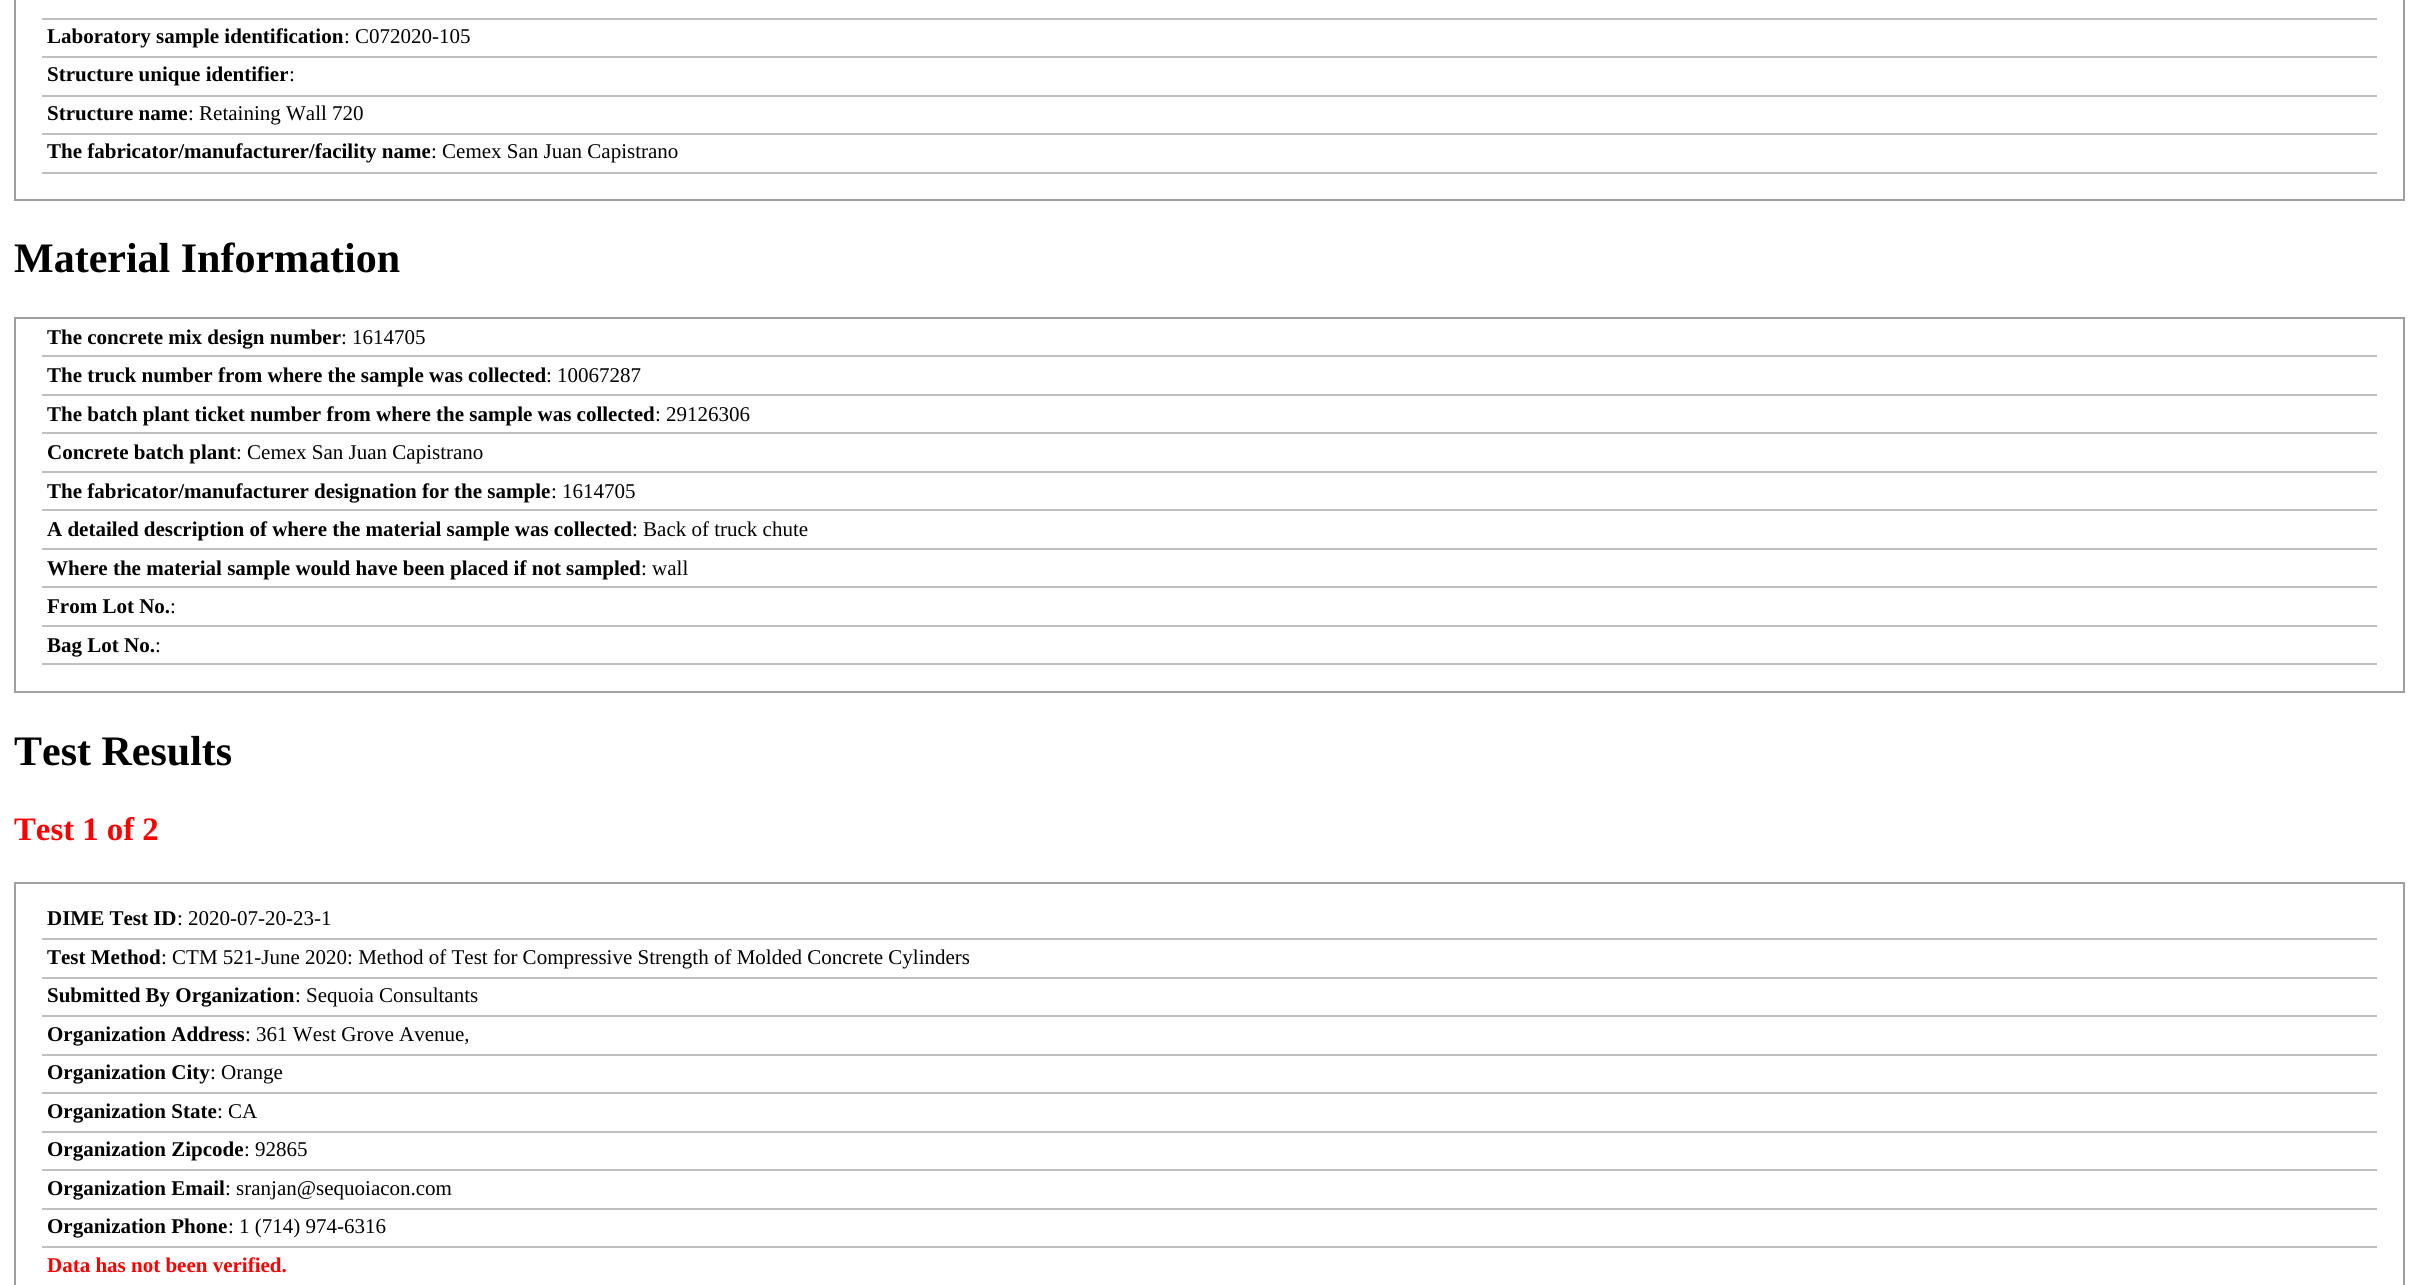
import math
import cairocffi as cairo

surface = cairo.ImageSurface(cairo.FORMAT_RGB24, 2417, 1285)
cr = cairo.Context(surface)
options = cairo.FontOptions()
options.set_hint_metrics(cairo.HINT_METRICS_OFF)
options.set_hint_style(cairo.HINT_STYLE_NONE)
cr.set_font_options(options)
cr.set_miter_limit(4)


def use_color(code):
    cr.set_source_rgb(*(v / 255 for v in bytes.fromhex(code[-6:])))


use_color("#ffffff")
cr.paint()
cr.rectangle(15, -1, 2389, 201)
use_color("#a0a0a0")
cr.stroke()
use_color("#c0c0c0")
cr.rectangle(42, 18, 2335, 2)
cr.fill()
cr.rectangle(42, 56, 2335, 2)
cr.fill()
cr.select_font_face("Liberation Serif", cairo.FONT_SLANT_NORMAL, cairo.FONT_WEIGHT_BOLD)
cr.set_font_size(21)
use_color("#000000")
cr.move_to(47, 43)
cr.show_text("Laboratory sample identification")
cr.select_font_face("Liberation Serif")
cr.move_to(344, 43)
cr.show_text(": C072020-105")
use_color("#c0c0c0")
cr.rectangle(42, 95, 2335, 2)
cr.fill()
cr.select_font_face("Liberation Serif", cairo.FONT_SLANT_NORMAL, cairo.FONT_WEIGHT_BOLD)
use_color("#000000")
cr.move_to(47, 81)
cr.show_text("Structure unique identifier")
cr.select_font_face("Liberation Serif")
cr.move_to(289, 81)
cr.show_text(":")
use_color("#c0c0c0")
cr.rectangle(42, 133, 2335, 2)
cr.fill()
cr.select_font_face("Liberation Serif", cairo.FONT_SLANT_NORMAL, cairo.FONT_WEIGHT_BOLD)
use_color("#000000")
cr.move_to(47, 120)
cr.show_text("Structure name")
cr.select_font_face("Liberation Serif")
cr.move_to(188, 120)
cr.show_text(": Retaining Wall 720")
use_color("#c0c0c0")
cr.rectangle(42, 172, 2335, 2)
cr.fill()
cr.select_font_face("Liberation Serif", cairo.FONT_SLANT_NORMAL, cairo.FONT_WEIGHT_BOLD)
use_color("#000000")
cr.move_to(47, 158)
cr.show_text("The fabricator/manufacturer/facility name")
cr.select_font_face("Liberation Serif")
cr.move_to(431, 158)
cr.show_text(": Cemex San Juan Capistrano")
cr.select_font_face("Liberation Serif", cairo.FONT_SLANT_NORMAL, cairo.FONT_WEIGHT_BOLD)
cr.set_font_size(42)
cr.move_to(14, 272)
cr.show_text("Material Information")
cr.rectangle(15, 318, 2389, 374)
use_color("#a0a0a0")
cr.stroke()
use_color("#c0c0c0")
cr.rectangle(42, 355, 2335, 2)
cr.fill()
cr.set_font_size(21)
use_color("#000000")
cr.move_to(47, 344)
cr.show_text("The concrete mix design number")
cr.select_font_face("Liberation Serif")
cr.move_to(341, 344)
cr.show_text(": 1614705")
use_color("#c0c0c0")
cr.rectangle(42, 394, 2335, 2)
cr.fill()
cr.select_font_face("Liberation Serif", cairo.FONT_SLANT_NORMAL, cairo.FONT_WEIGHT_BOLD)
use_color("#000000")
cr.move_to(47, 382)
cr.show_text("The truck number from where the sample was collected")
cr.select_font_face("Liberation Serif")
cr.move_to(546, 382)
cr.show_text(": 10067287")
use_color("#c0c0c0")
cr.rectangle(42, 432, 2335, 2)
cr.fill()
cr.select_font_face("Liberation Serif", cairo.FONT_SLANT_NORMAL, cairo.FONT_WEIGHT_BOLD)
use_color("#000000")
cr.move_to(47, 421)
cr.show_text("The batch plant ticket number from where the sample was collected")
cr.select_font_face("Liberation Serif")
cr.move_to(655, 421)
cr.show_text(": 29126306")
use_color("#c0c0c0")
cr.rectangle(42, 471, 2335, 2)
cr.fill()
cr.select_font_face("Liberation Serif", cairo.FONT_SLANT_NORMAL, cairo.FONT_WEIGHT_BOLD)
use_color("#000000")
cr.move_to(47, 459)
cr.show_text("Concrete batch plant")
cr.select_font_face("Liberation Serif")
cr.move_to(236, 459)
cr.show_text(": Cemex San Juan Capistrano")
use_color("#c0c0c0")
cr.rectangle(42, 509, 2335, 2)
cr.fill()
cr.select_font_face("Liberation Serif", cairo.FONT_SLANT_NORMAL, cairo.FONT_WEIGHT_BOLD)
use_color("#000000")
cr.move_to(47, 498)
cr.show_text("The fabricator/manufacturer designation for the sample")
cr.select_font_face("Liberation Serif")
cr.move_to(551, 498)
cr.show_text(": 1614705")
use_color("#c0c0c0")
cr.rectangle(42, 548, 2335, 2)
cr.fill()
cr.select_font_face("Liberation Serif", cairo.FONT_SLANT_NORMAL, cairo.FONT_WEIGHT_BOLD)
use_color("#000000")
cr.move_to(47, 536)
cr.show_text("A detailed description of where the material sample was collected")
cr.select_font_face("Liberation Serif")
cr.move_to(632, 536)
cr.show_text(": Back of truck chute")
use_color("#c0c0c0")
cr.rectangle(42, 586, 2335, 2)
cr.fill()
cr.select_font_face("Liberation Serif", cairo.FONT_SLANT_NORMAL, cairo.FONT_WEIGHT_BOLD)
use_color("#000000")
cr.move_to(47, 575)
cr.show_text("Where the material sample would have been placed if not sampled")
cr.select_font_face("Liberation Serif")
cr.move_to(641, 575)
cr.show_text(": wall")
use_color("#c0c0c0")
cr.rectangle(42, 625, 2335, 2)
cr.fill()
cr.select_font_face("Liberation Serif", cairo.FONT_SLANT_NORMAL, cairo.FONT_WEIGHT_BOLD)
use_color("#000000")
cr.move_to(47, 613)
cr.show_text("From Lot No.")
cr.select_font_face("Liberation Serif")
cr.move_to(170, 613)
cr.show_text(":")
use_color("#c0c0c0")
cr.rectangle(42, 663, 2335, 2)
cr.fill()
cr.select_font_face("Liberation Serif", cairo.FONT_SLANT_NORMAL, cairo.FONT_WEIGHT_BOLD)
use_color("#000000")
cr.move_to(47, 652)
cr.show_text("Bag Lot No.")
cr.select_font_face("Liberation Serif")
cr.move_to(155, 652)
cr.show_text(":")
cr.select_font_face("Liberation Serif", cairo.FONT_SLANT_NORMAL, cairo.FONT_WEIGHT_BOLD)
cr.set_font_size(42)
cr.move_to(14, 765)
cr.show_text("Test Results")
cr.set_font_size(32.75)
use_color("#ff0000")
cr.move_to(14, 840)
cr.show_text("Test 1 of 2")
cr.rectangle(15, 883, 2389, 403)
use_color("#a0a0a0")
cr.stroke()
use_color("#c0c0c0")
cr.rectangle(42, 938, 2335, 2)
cr.fill()
cr.set_font_size(21)
use_color("#000000")
cr.move_to(47, 925)
cr.show_text("DIME Test ID")
cr.select_font_face("Liberation Serif")
cr.move_to(177, 925)
cr.show_text(": 2020-07-20-23-1")
use_color("#c0c0c0")
cr.rectangle(42, 977, 2335, 2)
cr.fill()
cr.select_font_face("Liberation Serif", cairo.FONT_SLANT_NORMAL, cairo.FONT_WEIGHT_BOLD)
use_color("#000000")
cr.move_to(47, 964)
cr.show_text("Test Method")
cr.select_font_face("Liberation Serif")
cr.move_to(161, 964)
cr.show_text(": CTM 521-June 2020: Method of Test for Compressive Strength of Molded Concrete Cylinders")
use_color("#c0c0c0")
cr.rectangle(42, 1015, 2335, 2)
cr.fill()
cr.select_font_face("Liberation Serif", cairo.FONT_SLANT_NORMAL, cairo.FONT_WEIGHT_BOLD)
use_color("#000000")
cr.move_to(47, 1002)
cr.show_text("Submitted By Organization")
cr.select_font_face("Liberation Serif")
cr.move_to(295, 1002)
cr.show_text(": Sequoia Consultants")
use_color("#c0c0c0")
cr.rectangle(42, 1054, 2335, 2)
cr.fill()
cr.select_font_face("Liberation Serif", cairo.FONT_SLANT_NORMAL, cairo.FONT_WEIGHT_BOLD)
use_color("#000000")
cr.move_to(47, 1041)
cr.show_text("Organization Address")
cr.select_font_face("Liberation Serif")
cr.move_to(245, 1041)
cr.show_text(": 361 West Grove Avenue,")
use_color("#c0c0c0")
cr.rectangle(42, 1092, 2335, 2)
cr.fill()
cr.select_font_face("Liberation Serif", cairo.FONT_SLANT_NORMAL, cairo.FONT_WEIGHT_BOLD)
use_color("#000000")
cr.move_to(47, 1079)
cr.show_text("Organization City")
cr.select_font_face("Liberation Serif")
cr.move_to(210, 1079)
cr.show_text(": Orange")
use_color("#c0c0c0")
cr.rectangle(42, 1131, 2335, 2)
cr.fill()
cr.select_font_face("Liberation Serif", cairo.FONT_SLANT_NORMAL, cairo.FONT_WEIGHT_BOLD)
use_color("#000000")
cr.move_to(47, 1118)
cr.show_text("Organization State")
cr.select_font_face("Liberation Serif")
cr.move_to(217, 1118)
cr.show_text(": CA")
use_color("#c0c0c0")
cr.rectangle(42, 1169, 2335, 2)
cr.fill()
cr.select_font_face("Liberation Serif", cairo.FONT_SLANT_NORMAL, cairo.FONT_WEIGHT_BOLD)
use_color("#000000")
cr.move_to(47, 1156)
cr.show_text("Organization Zipcode")
cr.select_font_face("Liberation Serif")
cr.move_to(244, 1156)
cr.show_text(": 92865")
use_color("#c0c0c0")
cr.rectangle(42, 1208, 2335, 2)
cr.fill()
cr.select_font_face("Liberation Serif", cairo.FONT_SLANT_NORMAL, cairo.FONT_WEIGHT_BOLD)
use_color("#000000")
cr.move_to(47, 1195)
cr.show_text("Organization Email")
cr.select_font_face("Liberation Serif")
cr.move_to(225, 1195)
cr.show_text(": sranjan@sequoiacon.com")
use_color("#c0c0c0")
cr.rectangle(42, 1246, 2335, 2)
cr.fill()
cr.select_font_face("Liberation Serif", cairo.FONT_SLANT_NORMAL, cairo.FONT_WEIGHT_BOLD)
use_color("#000000")
cr.move_to(47, 1233)
cr.show_text("Organization Phone")
cr.select_font_face("Liberation Serif")
cr.move_to(228, 1233)
cr.show_text(": 1 (714) 974-6316")
cr.select_font_face("Liberation Serif", cairo.FONT_SLANT_NORMAL, cairo.FONT_WEIGHT_BOLD)
use_color("#ff0000")
cr.move_to(47, 1272)
cr.show_text("Data has not been verified.")
surface.write_to_png("result.png")
